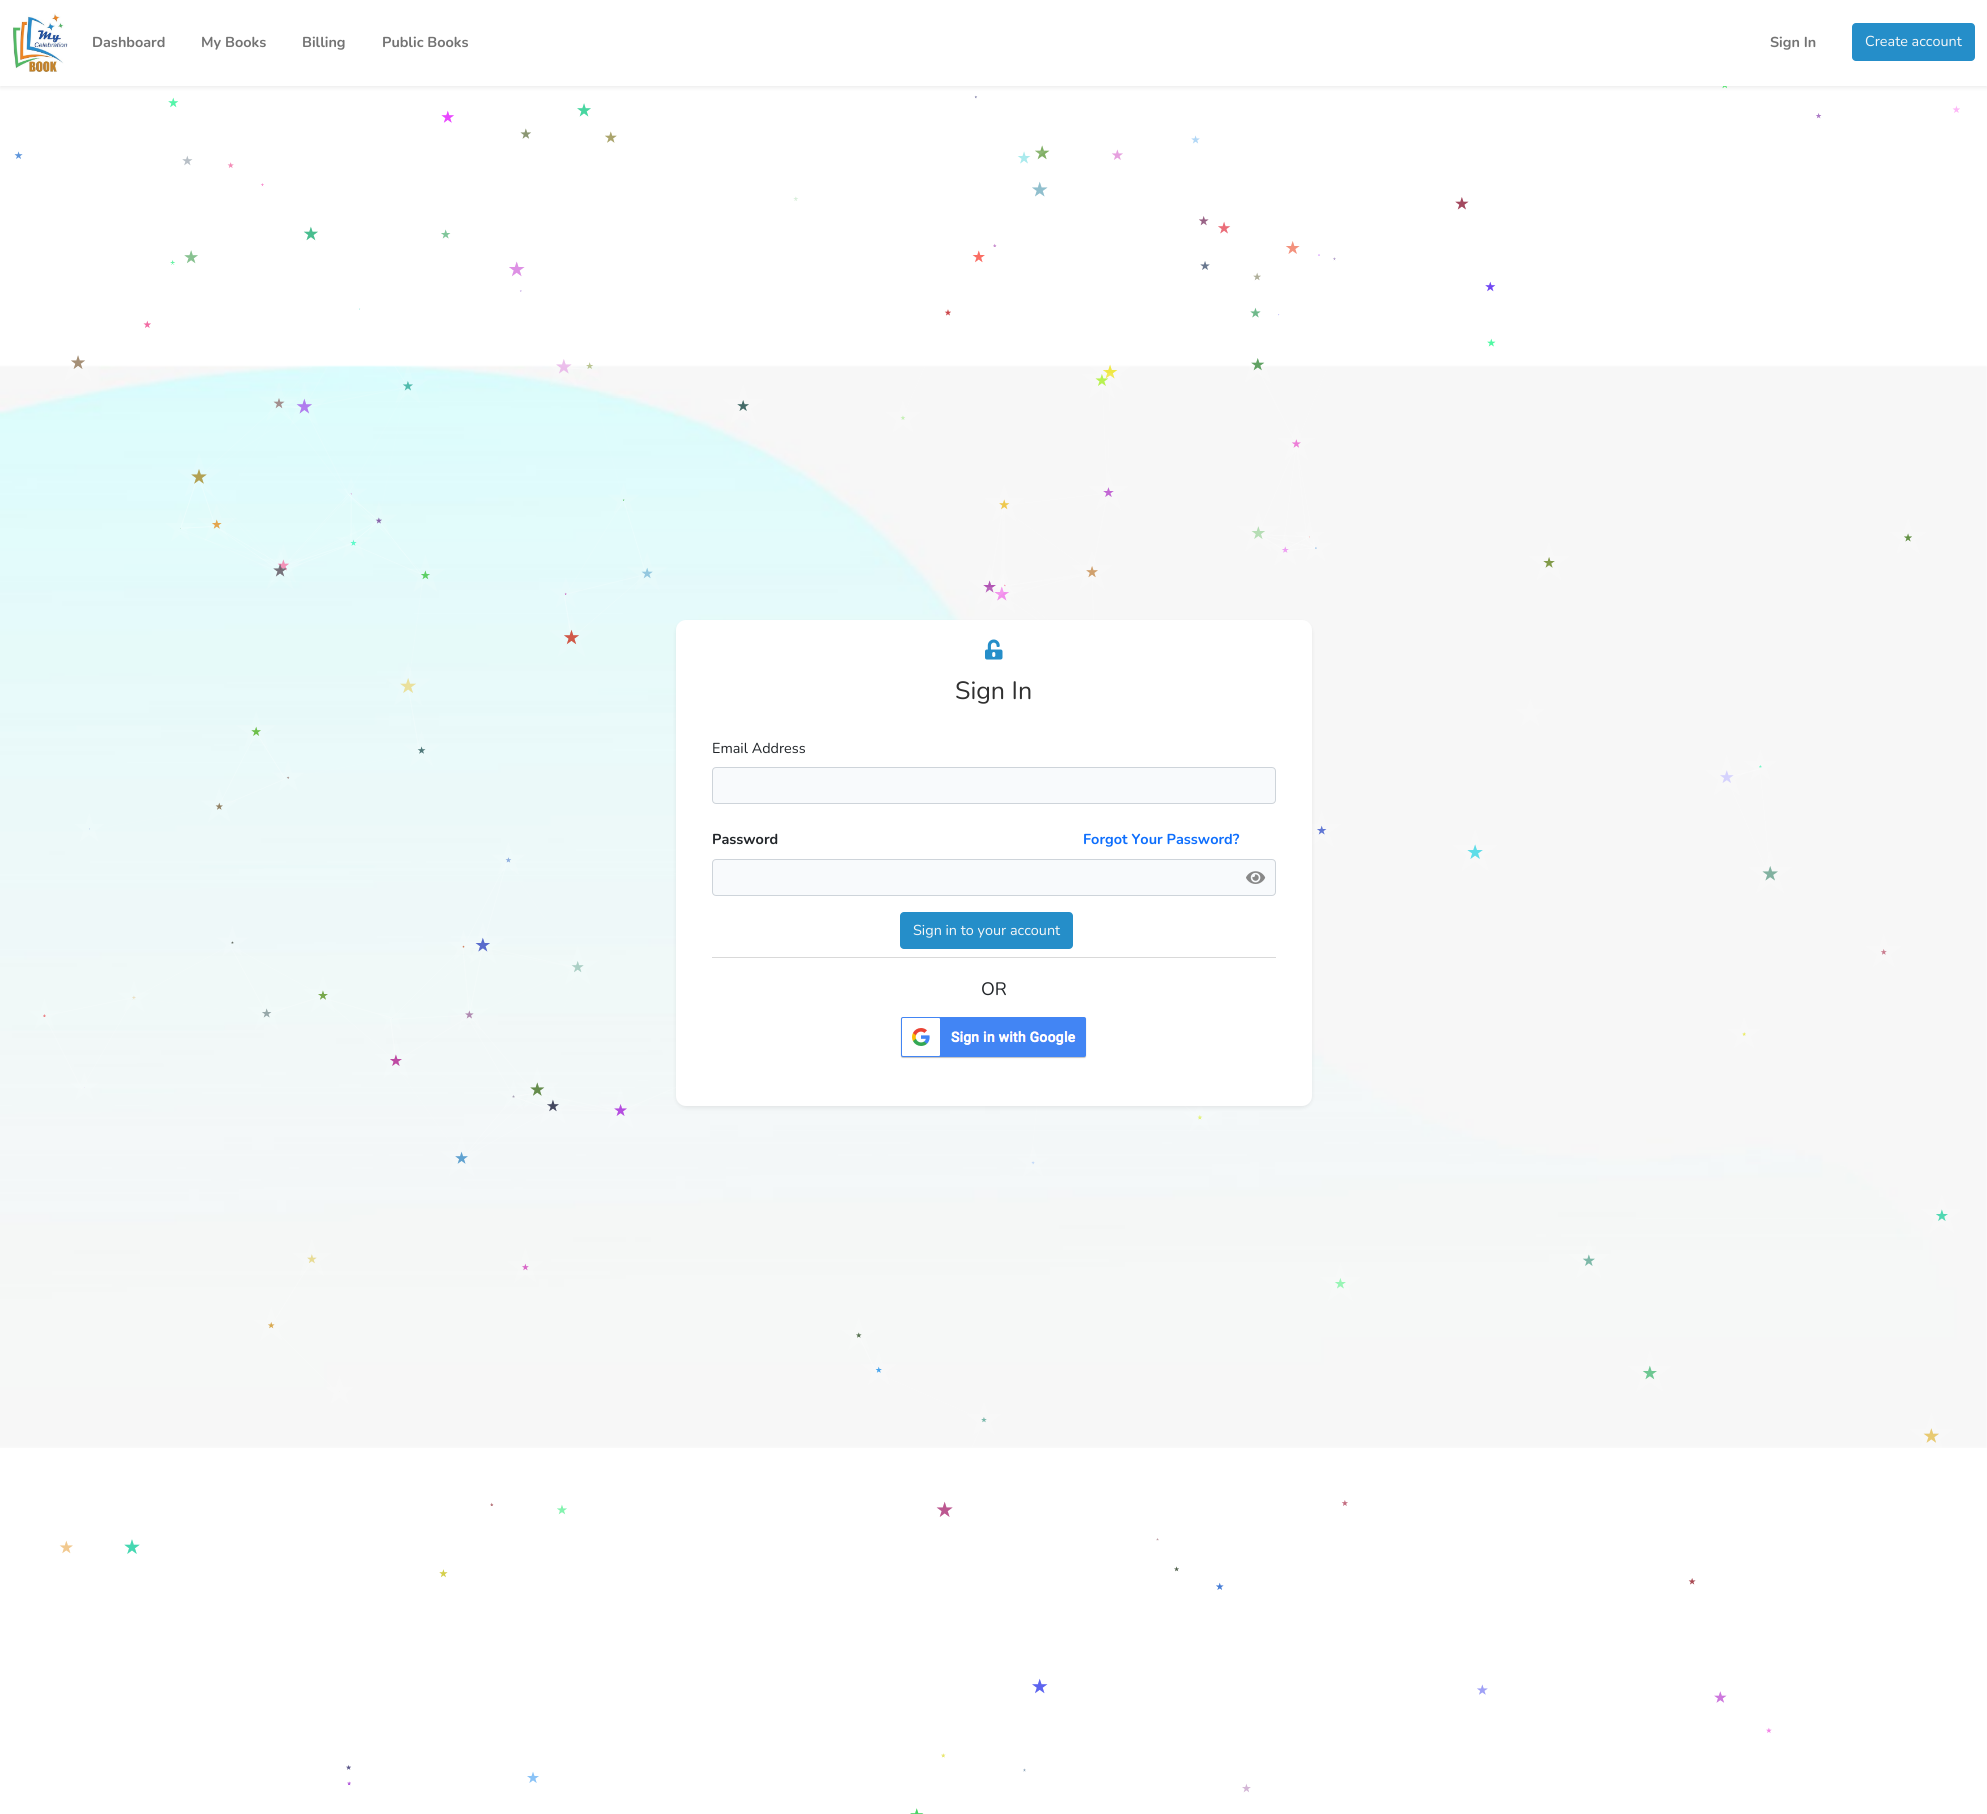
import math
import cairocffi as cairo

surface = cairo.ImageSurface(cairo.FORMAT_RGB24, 1987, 1814)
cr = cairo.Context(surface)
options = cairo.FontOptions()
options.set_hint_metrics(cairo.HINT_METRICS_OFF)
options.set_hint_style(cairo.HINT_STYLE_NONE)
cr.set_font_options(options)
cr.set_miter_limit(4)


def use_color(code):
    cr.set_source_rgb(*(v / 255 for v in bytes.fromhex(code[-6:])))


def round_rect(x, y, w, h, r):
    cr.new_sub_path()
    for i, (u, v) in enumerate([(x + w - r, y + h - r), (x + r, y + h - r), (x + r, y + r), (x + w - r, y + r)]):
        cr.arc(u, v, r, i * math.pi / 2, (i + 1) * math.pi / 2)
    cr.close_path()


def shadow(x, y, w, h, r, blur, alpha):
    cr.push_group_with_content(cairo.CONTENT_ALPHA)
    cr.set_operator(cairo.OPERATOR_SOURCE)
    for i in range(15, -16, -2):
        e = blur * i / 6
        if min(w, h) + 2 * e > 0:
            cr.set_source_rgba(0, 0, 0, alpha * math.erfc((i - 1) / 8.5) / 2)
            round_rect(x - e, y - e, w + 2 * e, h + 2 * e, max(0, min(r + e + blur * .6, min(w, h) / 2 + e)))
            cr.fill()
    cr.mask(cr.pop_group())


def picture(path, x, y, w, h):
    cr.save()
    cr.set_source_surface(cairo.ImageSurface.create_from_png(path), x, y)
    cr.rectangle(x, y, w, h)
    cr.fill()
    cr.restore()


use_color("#ffffff")
cr.paint()
picture("img1.png", 0, 365, 1987, 1083)
picture("img3.png", 14, 86, 1946, 1728)
use_color("#000000")
shadow(0, 2, 1987, 86, 0, 2, 0.07)
use_color("#ffffff")
cr.rectangle(0, 0, 1987, 86)
cr.fill()
picture("img2.png", 13, 13, 55, 59)
cr.select_font_face("Nunito", cairo.FONT_SLANT_NORMAL, cairo.FONT_WEIGHT_BOLD)
cr.set_font_size(14.4)
use_color("#737373")
cr.move_to(92, 47)
cr.show_text("Dashboard")
cr.move_to(201, 47)
cr.show_text("My Books")
cr.move_to(302, 47)
cr.show_text("Billing")
cr.move_to(382, 47)
cr.show_text("Public Books")
cr.move_to(1770, 47)
cr.show_text("Sign In")
use_color("#258ec9")
round_rect(1852, 23, 123, 38, 4)
cr.fill()
cr.select_font_face("Nunito ExtraLight")
use_color("#f7f7f7")
cr.move_to(1865, 46)
cr.show_text("Create account")
use_color("#000000")
shadow(676, 622, 636, 486, 10, 2, 0.07)
use_color("#ffffff")
round_rect(676, 620, 636, 486, 10)
cr.fill()
picture("img4.png", 985, 639, 18, 21)
cr.set_font_size(25)
use_color("#303030")
cr.move_to(955, 699)
cr.show_text("Sign In")
cr.set_font_size(14.4)
use_color("#212529")
cr.move_to(712, 753)
cr.show_text("Email Address")
use_color("#f8fafc")
round_rect(712.5, 767.5, 563, 36, 3.5)
cr.fill_preserve()
use_color("#ced4da")
cr.set_line_width(1)
cr.stroke()
cr.select_font_face("Nunito", cairo.FONT_SLANT_NORMAL, cairo.FONT_WEIGHT_BOLD)
use_color("#212529")
cr.move_to(712, 844)
cr.show_text("Password")
use_color("#0d6efd")
cr.move_to(1083, 844)
cr.show_text("Forgot Your Password?")
use_color("#f8fafc")
round_rect(712.5, 859.5, 563, 36, 3.5)
cr.fill_preserve()
use_color("#ced4da")
cr.stroke()
picture("img5.png", 1246, 871, 20, 13)
use_color("#258ec9")
round_rect(900, 912, 173, 37, 4)
cr.fill()
cr.select_font_face("Nunito ExtraLight")
use_color("#f7f7f7")
cr.move_to(913, 935)
cr.show_text("Sign in to your account")
use_color("#d9d9d9")
cr.rectangle(712, 957, 564, 1)
cr.fill()
cr.set_font_size(18)
use_color("#212529")
cr.move_to(981, 995)
cr.show_text("OR")
picture("img6.png", 900, 1017, 187, 42)
surface.write_to_png("result.png")
